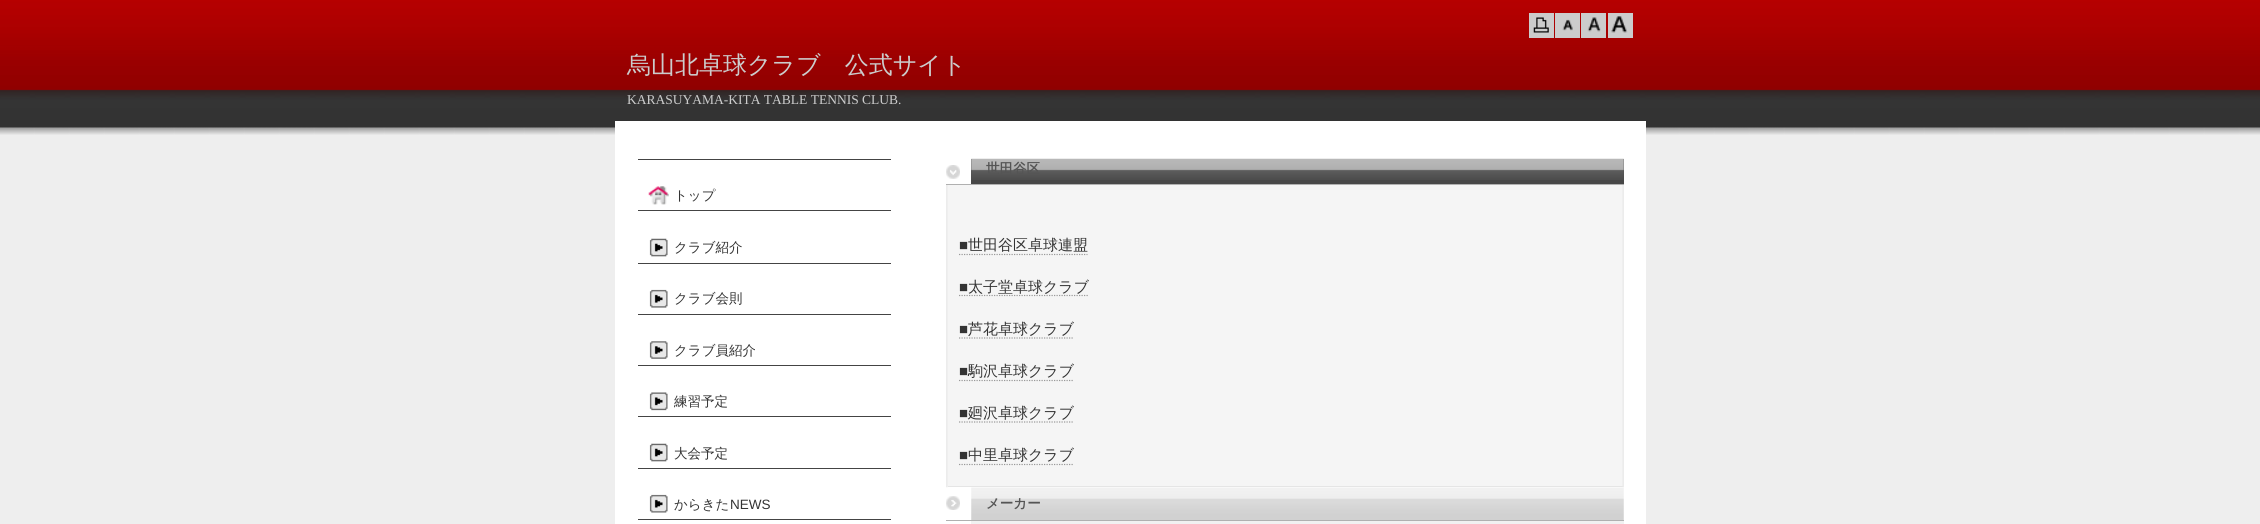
import math
import cairocffi as cairo

surface = cairo.ImageSurface(cairo.FORMAT_RGB24, 2260, 524)
cr = cairo.Context(surface)
options = cairo.FontOptions()
options.set_hint_metrics(cairo.HINT_METRICS_OFF)
options.set_hint_style(cairo.HINT_STYLE_NONE)
cr.set_font_options(options)
cr.set_miter_limit(4)


def use_color(code):
    cr.set_source_rgb(*(v / 255 for v in bytes.fromhex(code[-6:])))


def picture(path, x, y, w, h):
    cr.save()
    cr.set_source_surface(cairo.ImageSurface.create_from_png(path), x, y)
    cr.rectangle(x, y, w, h)
    cr.fill()
    cr.restore()


use_color("#eeeeee")
cr.paint()
picture("img1.png", 0, 0, 2260, 135)
use_color("#cccccc")
cr.rectangle(1529, 13, 25, 25)
cr.fill()
picture("img2.png", 1533, 17, 16, 16)
cr.rectangle(1555, 13, 25, 25)
cr.fill()
picture("img3.png", 1562, 19, 11, 12)
cr.rectangle(1581, 13, 25, 25)
cr.fill()
picture("img4.png", 1587, 17, 14, 15)
cr.rectangle(1608, 13, 25, 25)
cr.fill()
picture("img5.png", 1611, 16, 17, 17)
cr.select_font_face("WenQuanYi Zen Hei Medium")
cr.set_font_size(24)
cr.move_to(627, 73)
cr.show_text("烏山北卓球クラブ　公式サイト")
cr.select_font_face("Liberation Serif")
cr.set_font_size(13.5)
cr.move_to(627, 104)
cr.show_text("KARASUYAMA-KITA TABLE TENNIS CLUB.")
use_color("#ffffff")
cr.rectangle(615, 121, 1031, 403)
cr.fill()
use_color("#444444")
cr.rectangle(638, 159, 253, 1)
cr.fill()
cr.rectangle(638, 210, 253, 1)
cr.fill()
picture("img6.png", 648, 186, 21, 19)
cr.select_font_face("WenQuanYi Zen Hei Medium")
use_color("#333333")
cr.move_to(674, 200)
cr.show_text("トップ")
use_color("#444444")
cr.rectangle(638, 263, 253, 1)
cr.fill()
picture("img7.png", 649, 238, 19, 19)
use_color("#333333")
cr.move_to(674, 252)
cr.show_text("クラブ紹介")
use_color("#444444")
cr.rectangle(638, 314, 253, 1)
cr.fill()
picture("img8.png", 649, 289, 19, 19)
use_color("#333333")
cr.move_to(674, 303)
cr.show_text("クラブ会則")
use_color("#444444")
cr.rectangle(638, 365, 253, 1)
cr.fill()
picture("img9.png", 649, 341, 19, 18)
use_color("#333333")
cr.move_to(674, 355)
cr.show_text("クラブ員紹介")
use_color("#444444")
cr.rectangle(638, 416, 253, 1)
cr.fill()
picture("img10.png", 649, 392, 19, 19)
use_color("#333333")
cr.move_to(674, 406)
cr.show_text("練習予定")
use_color("#444444")
cr.rectangle(638, 468, 253, 1)
cr.fill()
picture("img7.png", 649, 443, 19, 19)
use_color("#333333")
cr.move_to(674, 458)
cr.show_text("大会予定")
use_color("#444444")
cr.rectangle(638, 519, 253, 1)
cr.fill()
picture("img11.png", 649, 494, 19, 19)
use_color("#333333")
cr.move_to(674, 509)
cr.show_text("からきた")
cr.select_font_face("Liberation Sans")
cr.move_to(730, 509)
cr.show_text("NEWS")
use_color("#b0b0b0")
cr.rectangle(946, 184, 678, 1)
cr.fill()
picture("img12.png", 946, 165, 14, 14)
use_color("#474747")
cr.rectangle(971, 159, 653, 25)
cr.fill()
picture("img13.png", 971, 158, 653, 22)
cr.select_font_face("WenQuanYi Zen Hei", cairo.FONT_SLANT_NORMAL, cairo.FONT_WEIGHT_BOLD)
use_color("#555555")
cr.move_to(986, 173)
cr.show_text("世田谷区")
use_color("#f5f5f5")
cr.rectangle(947, 185, 676, 302)
cr.fill()
picture("img14.png", 946, 185, 2, 303)
use_color("#e5e5e5")
cr.rectangle(948, 486, 675, 1)
cr.fill()
cr.select_font_face("Liberation Sans")
cr.set_font_size(15)
use_color("#333333")
cr.move_to(959, 250)
cr.show_text("■")
cr.new_path()
cr.move_to(959, 254.5)
cr.line_to(1087.5, 254.5)
use_color("#999999")
cr.set_line_width(1.2)
cr.set_dash([1.25, 1.25])
cr.stroke()
cr.select_font_face("WenQuanYi Zen Hei Medium")
use_color("#333333")
cr.move_to(968, 250)
cr.show_text("世田谷区卓球連盟")
cr.select_font_face("Liberation Sans")
cr.move_to(959, 292)
cr.show_text("■")
cr.new_path()
cr.move_to(959, 295.5)
cr.line_to(1089, 295.5)
use_color("#999999")
cr.stroke()
cr.select_font_face("WenQuanYi Zen Hei Medium")
use_color("#333333")
cr.move_to(968, 292)
cr.show_text("太子堂卓球クラブ")
cr.select_font_face("Liberation Sans")
cr.move_to(959, 334)
cr.show_text("■")
cr.new_path()
cr.move_to(959, 338)
cr.line_to(1074, 338)
use_color("#999999")
cr.stroke()
cr.select_font_face("WenQuanYi Zen Hei Medium")
use_color("#333333")
cr.move_to(968, 334)
cr.show_text("芦花卓球クラブ")
cr.select_font_face("Liberation Sans")
cr.move_to(959, 376)
cr.show_text("■")
cr.new_path()
cr.move_to(959, 380.5)
cr.line_to(1074, 380.5)
use_color("#999999")
cr.stroke()
cr.select_font_face("WenQuanYi Zen Hei Medium")
use_color("#333333")
cr.move_to(968, 376)
cr.show_text("駒沢卓球クラブ")
cr.select_font_face("Liberation Sans")
cr.move_to(959, 418)
cr.show_text("■")
cr.new_path()
cr.move_to(959, 422)
cr.line_to(1074, 422)
use_color("#999999")
cr.stroke()
cr.select_font_face("WenQuanYi Zen Hei Medium")
use_color("#333333")
cr.move_to(968, 418)
cr.show_text("廻沢卓球クラブ")
cr.select_font_face("Liberation Sans")
cr.move_to(959, 460)
cr.show_text("■")
cr.new_path()
cr.move_to(959, 464.5)
cr.line_to(1074, 464.5)
use_color("#999999")
cr.stroke()
cr.select_font_face("WenQuanYi Zen Hei Medium")
use_color("#333333")
cr.move_to(968, 460)
cr.show_text("中里卓球クラブ")
picture("img15.png", 1622, 185, 2, 303)
use_color("#b0b0b0")
cr.rectangle(946, 520, 678, 1)
cr.fill()
picture("img16.png", 946, 496, 14, 14)
picture("img17.png", 971, 487, 653, 33)
cr.select_font_face("WenQuanYi Zen Hei", cairo.FONT_SLANT_NORMAL, cairo.FONT_WEIGHT_BOLD)
cr.set_font_size(13.5)
use_color("#555555")
cr.move_to(986, 508)
cr.show_text("メーカー")
use_color("#f1f1f1")
cr.rectangle(971, 521, 653, 3)
cr.fill()
surface.write_to_png("result.png")
